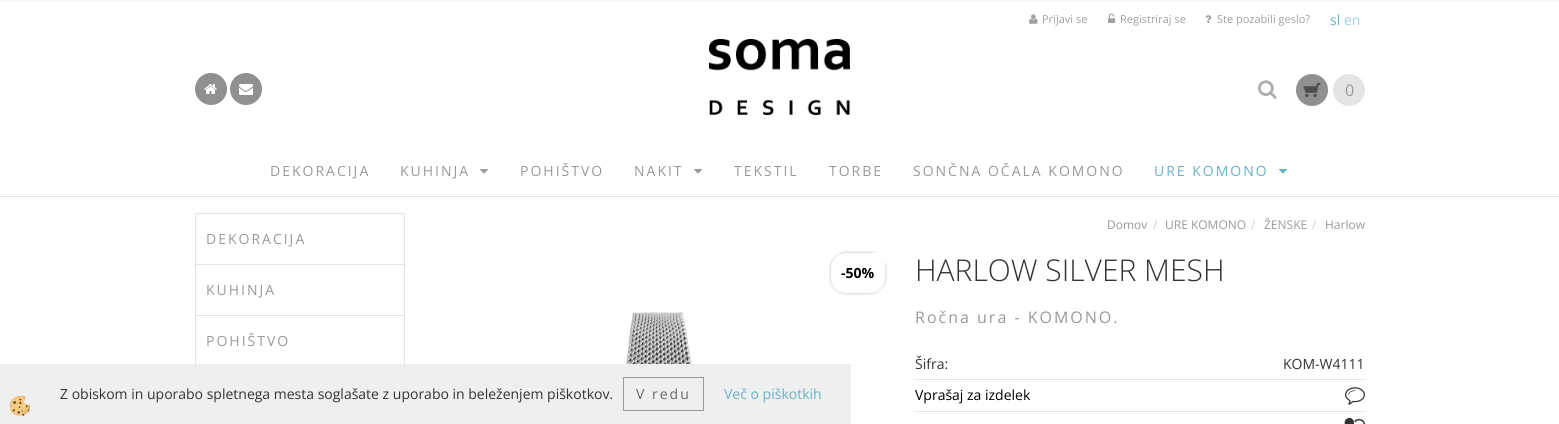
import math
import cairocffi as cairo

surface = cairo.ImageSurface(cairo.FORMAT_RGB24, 1559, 424)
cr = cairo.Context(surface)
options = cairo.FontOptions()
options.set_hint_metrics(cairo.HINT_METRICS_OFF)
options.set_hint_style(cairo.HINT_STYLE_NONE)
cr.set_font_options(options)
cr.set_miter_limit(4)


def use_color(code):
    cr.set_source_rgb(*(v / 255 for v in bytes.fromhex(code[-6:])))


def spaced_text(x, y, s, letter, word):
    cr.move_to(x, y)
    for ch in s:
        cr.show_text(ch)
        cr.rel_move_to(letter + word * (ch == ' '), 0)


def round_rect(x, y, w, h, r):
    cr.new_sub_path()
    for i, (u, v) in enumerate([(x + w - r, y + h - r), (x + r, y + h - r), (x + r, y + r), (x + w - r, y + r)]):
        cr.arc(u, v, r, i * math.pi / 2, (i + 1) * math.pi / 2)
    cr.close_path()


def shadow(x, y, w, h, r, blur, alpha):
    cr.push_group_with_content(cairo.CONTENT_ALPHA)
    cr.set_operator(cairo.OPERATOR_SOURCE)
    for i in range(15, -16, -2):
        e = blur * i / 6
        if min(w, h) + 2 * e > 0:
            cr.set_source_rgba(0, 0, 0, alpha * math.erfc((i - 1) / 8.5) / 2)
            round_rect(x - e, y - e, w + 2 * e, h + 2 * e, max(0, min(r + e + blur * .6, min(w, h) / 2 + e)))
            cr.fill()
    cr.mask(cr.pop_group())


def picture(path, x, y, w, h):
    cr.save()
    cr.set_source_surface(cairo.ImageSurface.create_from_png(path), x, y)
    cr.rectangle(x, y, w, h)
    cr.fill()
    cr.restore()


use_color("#ffffff")
cr.paint()
use_color("#f8f8f8")
cr.rectangle(0, 0, 1559, 1)
cr.fill()
picture("img1.png", 1029, 14, 9, 10)
cr.select_font_face("Open Sans")
cr.set_font_size(11)
use_color("#a1a1a4")
cr.move_to(1042, 23)
cr.show_text("Prijavi se")
picture("img2.png", 1108, 13, 8, 10)
cr.move_to(1120, 23)
cr.show_text("Registriraj se")
picture("img3.png", 1205, 15, 7, 8)
cr.move_to(1217, 23)
cr.show_text("Ste pozabili geslo?")
cr.set_font_size(14)
use_color("#65b3c7")
cr.move_to(1330, 25)
cr.show_text("sl")
use_color("#a3d1dd")
cr.move_to(1344, 25)
cr.show_text("en")
picture("img4.png", 1296, 74, 32, 32)
use_color("#e4e4e4")
cr.arc(1349, 90, 16, 0, 2 * math.pi)
cr.fill()
cr.set_font_size(16)
use_color("#999999")
cr.move_to(1345, 96)
cr.show_text("0")
use_color("#909090")
cr.new_path()
cr.arc(211, 89, 16, 0, 2 * math.pi)
cr.fill()
picture("img5.png", 204, 84, 13, 10)
cr.arc(246, 89, 16, 0, 2 * math.pi)
cr.fill()
picture("img6.png", 239, 84, 14, 11)
picture("img7.png", 709, 39, 141, 76)
picture("img8.png", 1258, 80, 19, 19)
use_color("#e4e4e4")
cr.rectangle(0, 196, 1559, 1)
cr.fill()
cr.set_font_size(14)
use_color("#999999")
spaced_text(270, 176, "DEKORACIJA", 2, 0)
spaced_text(400, 176, "KUHINJA", 2, 0)
picture("img9.png", 480, 169, 8, 5)
spaced_text(520, 176, "POHIŠTVO", 2, 0)
spaced_text(634, 176, "NAKIT", 2, 0)
picture("img9.png", 694, 169, 8, 5)
spaced_text(734, 176, "TEKSTIL", 2, 0)
spaced_text(829, 176, "TORBE", 2, 0)
spaced_text(913, 176, "SONČNA OČALA KOMONO", 2, 0)
use_color("#65b3c7")
spaced_text(1154, 176, "URE KOMONO", 2, 0)
picture("img10.png", 1279, 169, 8, 5)
cr.rectangle(195.5, 213.5, 209, 51)
use_color("#e4e4e4")
cr.set_line_width(1)
cr.stroke()
use_color("#999999")
spaced_text(206, 244, "DEKORACIJA", 2, 0)
cr.rectangle(195.5, 264.5, 209, 51)
use_color("#e4e4e4")
cr.stroke()
use_color("#999999")
spaced_text(206, 295, "KUHINJA", 2, 0)
cr.rectangle(195.5, 315.5, 209, 51)
use_color("#e4e4e4")
cr.stroke()
use_color("#999999")
spaced_text(206, 346, "POHIŠTVO", 2, 0)
cr.set_font_size(12)
cr.move_to(1107, 229)
cr.show_text("Domov")
use_color("#cccccc")
cr.move_to(1153, 229)
cr.show_text("/")
use_color("#999999")
cr.move_to(1165, 229)
cr.show_text("URE KOMONO")
use_color("#cccccc")
cr.move_to(1251, 229)
cr.show_text("/")
use_color("#999999")
cr.move_to(1264, 229)
cr.show_text("ŽENSKE")
use_color("#cccccc")
cr.move_to(1312, 229)
cr.show_text("/")
use_color("#999999")
cr.move_to(1325, 229)
cr.show_text("Harlow")
use_color("#000000")
shadow(831, 253, 54, 40, 15, 1.5, 0.3)
use_color("#ffffff")
cr.new_path()
cr.move_to(846, 253)
cr.line_to(885, 253)
cr.line_to(885, 278)
cr.curve_to(885, 286.5, 878.5, 293, 870, 293)
cr.line_to(846, 293)
cr.curve_to(837.5, 293, 831, 286.5, 831, 278)
cr.line_to(831, 268)
cr.curve_to(831, 259.5, 837.5, 253, 846, 253)
cr.close_path()
cr.fill()
cr.select_font_face("Open Sans", cairo.FONT_SLANT_NORMAL, cairo.FONT_WEIGHT_BOLD)
cr.set_font_size(14)
use_color("#000000")
cr.move_to(841, 278)
cr.show_text("-50%")
picture("img11.png", 626, 312, 66, 52)
cr.select_font_face("Open Sans Light")
cr.set_font_size(30)
use_color("#333333")
cr.move_to(915, 281)
cr.show_text("HARLOW SILVER MESH")
cr.select_font_face("Open Sans")
cr.set_font_size(16)
use_color("#999999")
spaced_text(915, 323, "Ročna ura - KOMONO.", 2, 0)
use_color("#e4e4e4")
cr.rectangle(915, 379, 450, 1)
cr.fill()
cr.set_font_size(14)
use_color("#333333")
cr.move_to(915, 369)
cr.show_text("Šifra:")
cr.move_to(1283, 369)
cr.show_text("KOM-W4111")
use_color("#e4e4e4")
cr.rectangle(915, 411, 450, 1)
cr.fill()
use_color("#000000")
cr.move_to(915, 400)
cr.show_text("Vprašaj za izdelek")
picture("img12.png", 1345, 387, 20, 18)
picture("img13.png", 1344, 418, 21, 6)
use_color("#efefef")
cr.rectangle(0, 364, 851, 60)
cr.fill()
picture("img14.png", 10, 396, 20, 20)
use_color("#333333")
cr.move_to(60, 399)
cr.show_text("Z obiskom in uporabo spletnega mesta soglašate z uporabo in beleženjem piškotkov.")
cr.rectangle(623.5, 377.5, 80, 33)
use_color("#999999")
cr.stroke()
use_color("#666666")
spaced_text(636, 399, "V redu", 2, 0)
use_color("#65b3c7")
cr.move_to(724, 399)
cr.show_text("Več o piškotkih")
surface.write_to_png("result.png")
